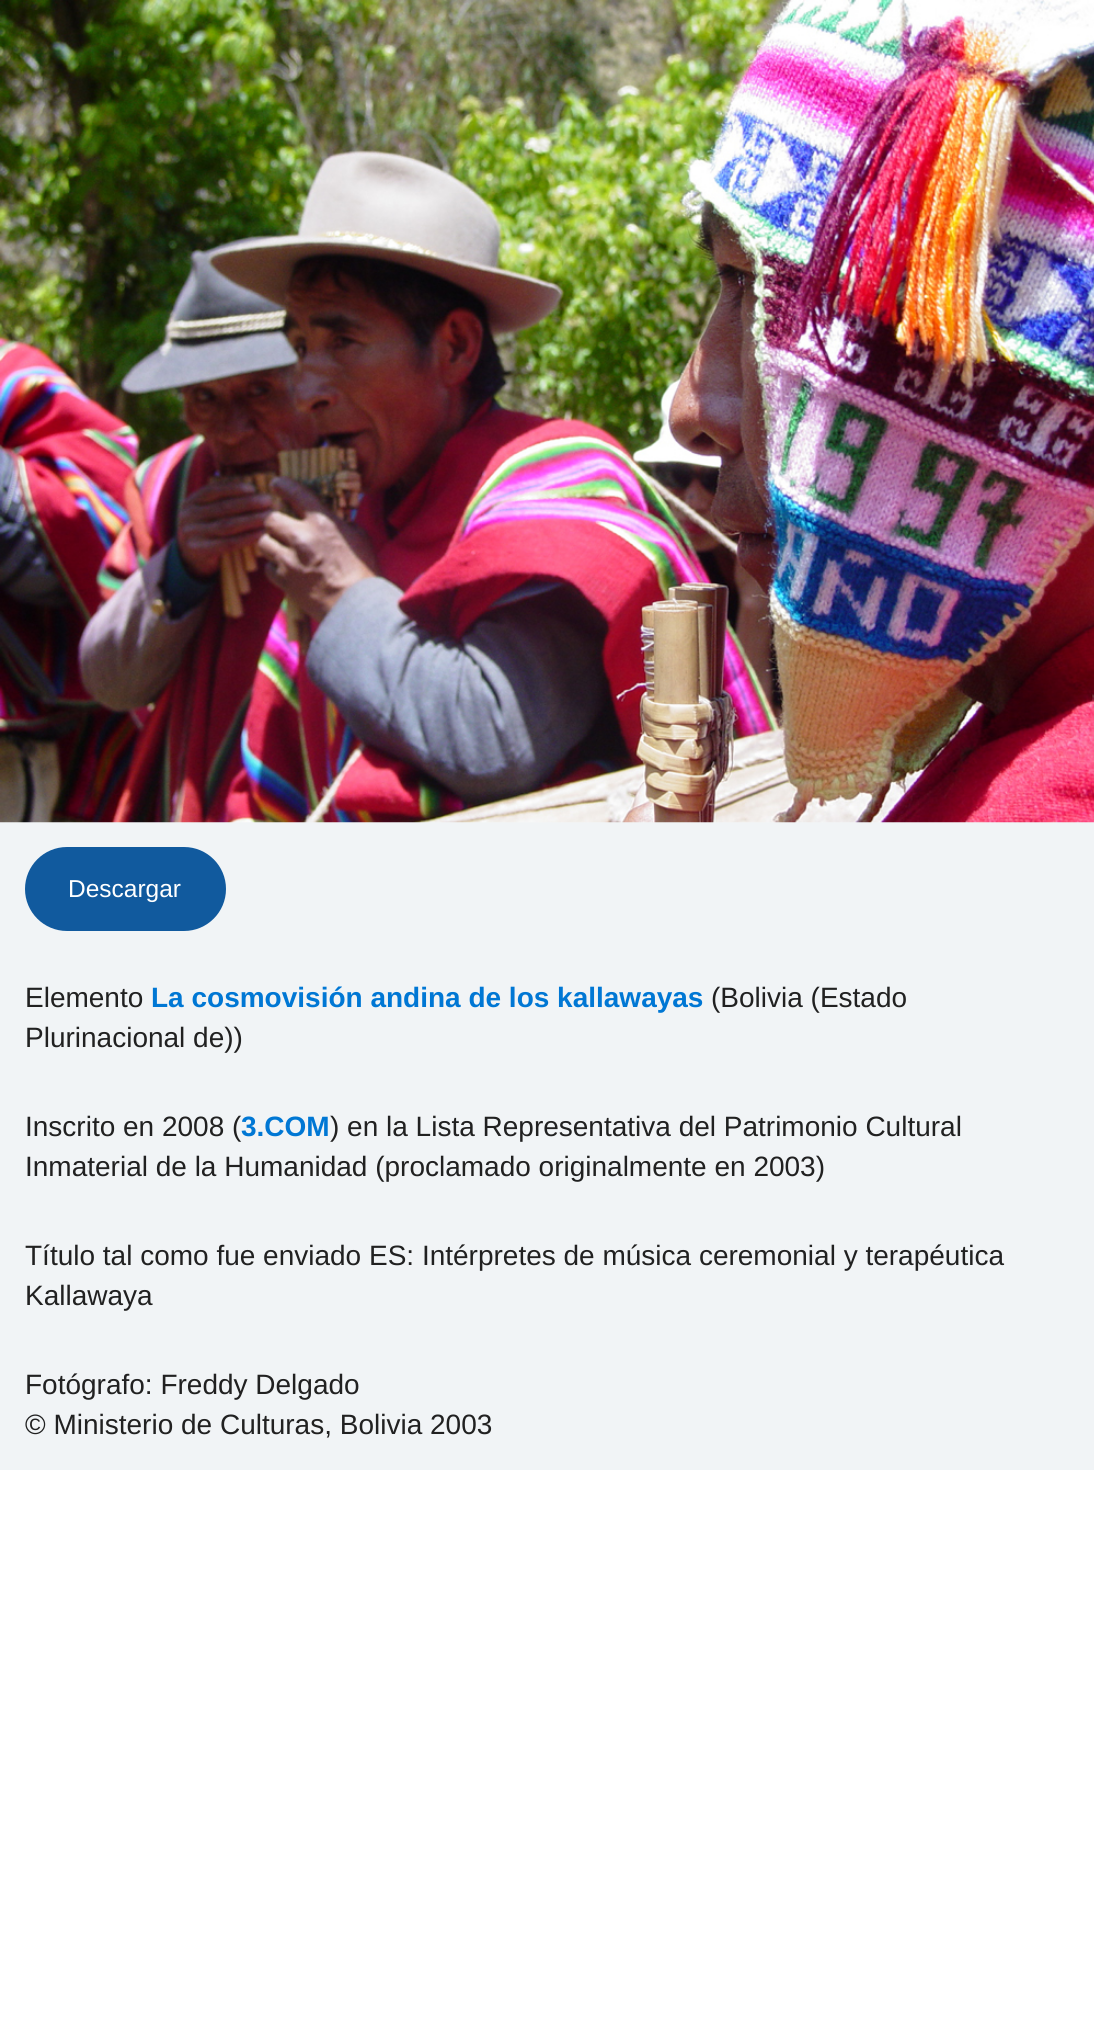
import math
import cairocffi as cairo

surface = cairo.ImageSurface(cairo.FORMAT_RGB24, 1094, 2031)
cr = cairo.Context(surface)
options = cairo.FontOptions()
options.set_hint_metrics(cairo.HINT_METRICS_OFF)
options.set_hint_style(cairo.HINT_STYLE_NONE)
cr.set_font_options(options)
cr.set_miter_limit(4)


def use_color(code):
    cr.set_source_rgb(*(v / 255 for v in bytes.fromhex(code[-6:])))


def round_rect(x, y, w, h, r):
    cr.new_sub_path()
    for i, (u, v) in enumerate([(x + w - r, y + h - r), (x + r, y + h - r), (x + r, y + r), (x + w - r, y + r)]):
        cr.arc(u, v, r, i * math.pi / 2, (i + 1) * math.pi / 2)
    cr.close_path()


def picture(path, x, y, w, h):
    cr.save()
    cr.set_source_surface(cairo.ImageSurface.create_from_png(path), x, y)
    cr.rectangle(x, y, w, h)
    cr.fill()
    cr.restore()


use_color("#ffffff")
cr.paint()
use_color("#f1f4f6")
cr.rectangle(0, 822, 1094, 648)
cr.fill()
picture("img1.png", 0, 0, 1094, 823)
use_color("#115a9e")
round_rect(25, 847, 201, 84, 42)
cr.fill()
cr.select_font_face("Liberation Sans")
cr.set_font_size(24.5)
use_color("#ffffff")
cr.move_to(68, 897)
cr.show_text("Descargar")
cr.set_font_size(28)
use_color("#212121")
cr.move_to(25, 1007)
cr.show_text("Elemento")
cr.select_font_face("Liberation Sans", cairo.FONT_SLANT_NORMAL, cairo.FONT_WEIGHT_BOLD)
use_color("#0077d4")
cr.move_to(151, 1007)
cr.show_text("La cosmovisión andina de los kallawayas")
cr.select_font_face("Liberation Sans")
use_color("#212121")
cr.move_to(711, 1007)
cr.show_text("(Bolivia (Estado")
cr.move_to(25, 1047)
cr.show_text("Plurinacional de))")
cr.move_to(25, 1136)
cr.show_text("Inscrito en 2008 (")
cr.select_font_face("Liberation Sans", cairo.FONT_SLANT_NORMAL, cairo.FONT_WEIGHT_BOLD)
use_color("#0077d4")
cr.move_to(241, 1136)
cr.show_text("3.COM")
cr.select_font_face("Liberation Sans")
use_color("#212121")
cr.move_to(330, 1136)
cr.show_text(") en la Lista Representativa del Patrimonio Cultural")
cr.move_to(25, 1176)
cr.show_text("Inmaterial de la Humanidad (proclamado originalmente en 2003)")
cr.move_to(25, 1265)
cr.show_text("Título tal como fue enviado ES: Intérpretes de música ceremonial y terapéutica")
cr.move_to(25, 1305)
cr.show_text("Kallawaya")
cr.move_to(25, 1394)
cr.show_text("Fotógrafo: Freddy Delgado")
cr.move_to(25, 1434)
cr.show_text("© Ministerio de Culturas, Bolivia 2003")
surface.write_to_png("result.png")
